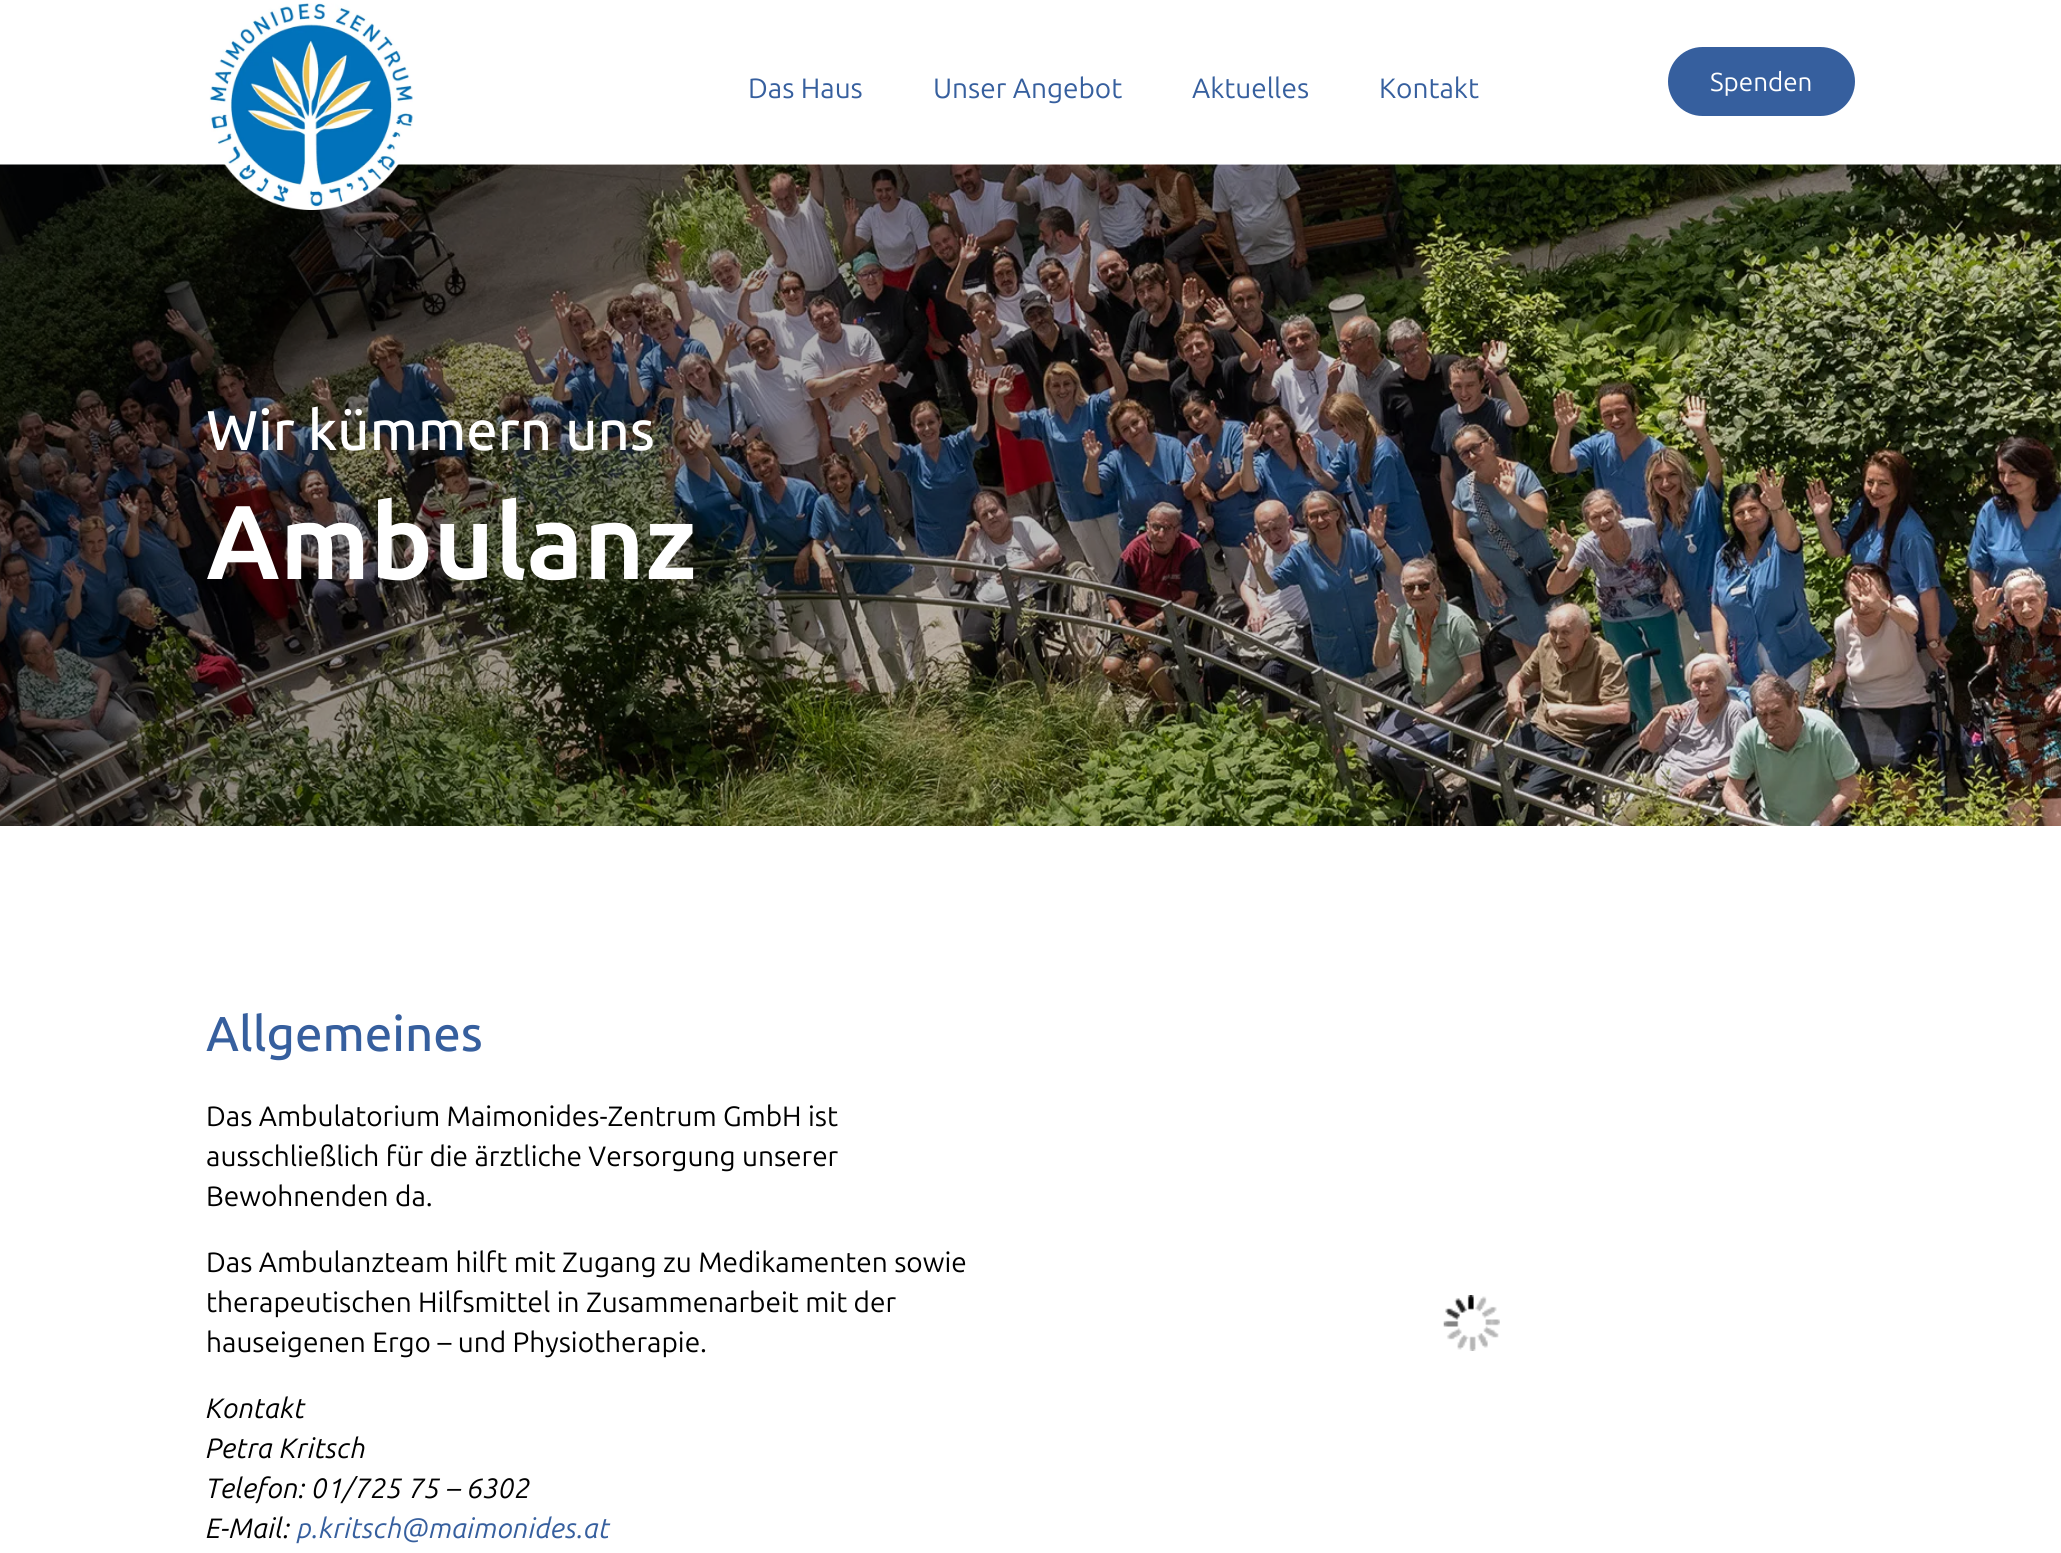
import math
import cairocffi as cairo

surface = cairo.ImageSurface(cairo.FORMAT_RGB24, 2061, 1553)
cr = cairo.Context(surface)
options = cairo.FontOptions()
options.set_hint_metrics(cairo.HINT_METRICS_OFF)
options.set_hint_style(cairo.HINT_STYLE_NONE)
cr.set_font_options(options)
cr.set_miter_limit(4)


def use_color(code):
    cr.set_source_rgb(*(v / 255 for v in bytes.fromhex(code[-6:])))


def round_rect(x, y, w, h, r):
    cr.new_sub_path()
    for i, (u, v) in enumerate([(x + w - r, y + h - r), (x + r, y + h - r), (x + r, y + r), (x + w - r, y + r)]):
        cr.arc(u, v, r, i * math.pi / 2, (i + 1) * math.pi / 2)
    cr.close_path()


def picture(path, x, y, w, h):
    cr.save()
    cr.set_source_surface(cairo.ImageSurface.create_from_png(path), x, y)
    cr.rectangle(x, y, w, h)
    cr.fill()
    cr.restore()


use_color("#ffffff")
cr.paint()
picture("img2.png", 0, 164, 2061, 662)
picture("img1.png", 209, 3, 204, 207)
cr.select_font_face("Ubuntu")
cr.set_font_size(28)
use_color("#365f9e")
cr.move_to(748, 98)
cr.show_text("Das Haus")
cr.move_to(933, 98)
cr.show_text("Unser Angebot")
cr.move_to(1192, 98)
cr.show_text("Aktuelles")
cr.move_to(1379, 98)
cr.show_text("Kontakt")
round_rect(1668, 47, 187, 69, 34.5)
cr.fill()
cr.set_font_size(26)
use_color("#ffffff")
cr.move_to(1710, 91)
cr.show_text("Spenden")
cr.select_font_face("Ubuntu Medium")
cr.set_font_size(56)
cr.move_to(206, 450)
cr.show_text("Wir kümmern uns")
cr.select_font_face("Ubuntu", cairo.FONT_SLANT_NORMAL, cairo.FONT_WEIGHT_BOLD)
cr.set_font_size(105)
cr.move_to(206, 579)
cr.show_text("Ambulanz")
cr.select_font_face("Ubuntu Medium")
cr.set_font_size(49)
use_color("#365f9e")
cr.move_to(206, 1051)
cr.show_text("Allgemeines")
cr.select_font_face("Ubuntu")
cr.set_font_size(28)
use_color("#000000")
cr.move_to(206, 1126)
cr.show_text("Das Ambulatorium Maimonides-Zentrum GmbH ist")
cr.move_to(206, 1166)
cr.show_text("ausschließlich für die ärztliche Versorgung unserer")
cr.move_to(206, 1206)
cr.show_text("Bewohnenden da.")
cr.move_to(206, 1272)
cr.show_text("Das Ambulanzteam hilft mit Zugang zu Medikamenten sowie")
cr.move_to(206, 1312)
cr.show_text("therapeutischen Hilfsmittel in Zusammenarbeit mit der")
cr.move_to(206, 1352)
cr.show_text("hauseigenen Ergo – und Physiotherapie.")
cr.select_font_face("Ubuntu", cairo.FONT_SLANT_ITALIC)
cr.move_to(206, 1418)
cr.show_text("Kontakt")
cr.move_to(206, 1458)
cr.show_text("Petra Kritsch")
cr.move_to(206, 1498)
cr.show_text("Telefon: 01/725 75 – 6302")
cr.move_to(206, 1538)
cr.show_text("E-Mail:")
use_color("#365f9e")
cr.move_to(297, 1538)
cr.show_text("p.kritsch@maimonides.at")
picture("img3.png", 1443, 1295, 57, 56)
surface.write_to_png("result.png")
